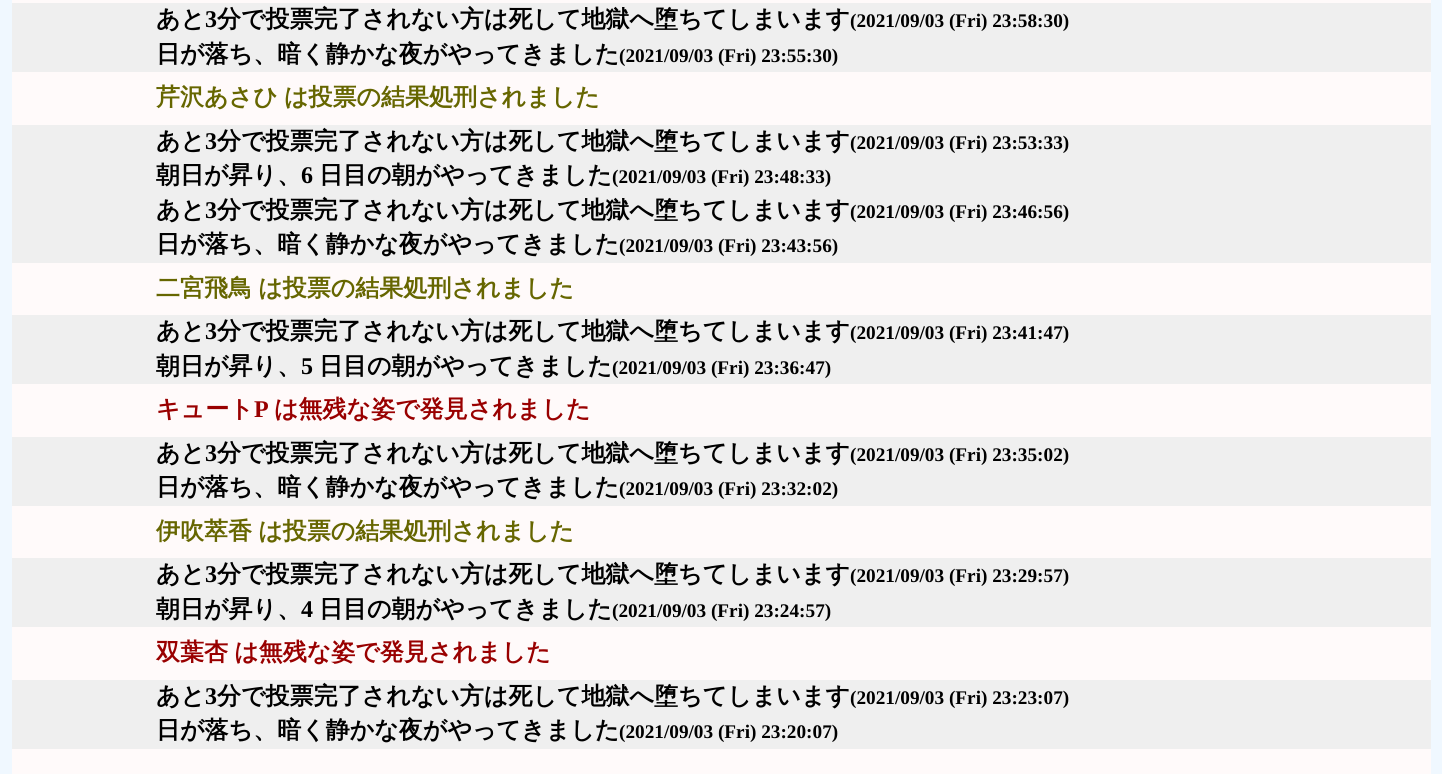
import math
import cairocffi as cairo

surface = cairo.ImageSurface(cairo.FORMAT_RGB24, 1442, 774)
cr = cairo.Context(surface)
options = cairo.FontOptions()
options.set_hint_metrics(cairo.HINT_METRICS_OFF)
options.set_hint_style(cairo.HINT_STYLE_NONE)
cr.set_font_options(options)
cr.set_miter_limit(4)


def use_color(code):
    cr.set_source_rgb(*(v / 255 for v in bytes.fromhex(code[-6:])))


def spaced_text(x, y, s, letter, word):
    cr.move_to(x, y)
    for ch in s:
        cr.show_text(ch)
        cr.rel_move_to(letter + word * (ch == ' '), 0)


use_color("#f0f8ff")
cr.paint()
use_color("#fffafa")
cr.rectangle(12, 0, 1419, 3)
cr.fill()
use_color("#efefef")
cr.rectangle(12, 3, 1419, 69)
cr.fill()
cr.select_font_face("WenQuanYi Zen Hei", cairo.FONT_SLANT_NORMAL, cairo.FONT_WEIGHT_BOLD)
cr.set_font_size(24)
use_color("#000000")
cr.move_to(156, 27)
cr.show_text("あと")
cr.select_font_face("Liberation Serif", cairo.FONT_SLANT_NORMAL, cairo.FONT_WEIGHT_BOLD)
cr.move_to(205, 27)
cr.show_text("3")
cr.select_font_face("WenQuanYi Zen Hei", cairo.FONT_SLANT_NORMAL, cairo.FONT_WEIGHT_BOLD)
cr.move_to(217, 27)
cr.show_text("分で投票完了されない方は死して地獄へ堕ちてしまいます")
cr.select_font_face("Liberation Serif", cairo.FONT_SLANT_NORMAL, cairo.FONT_WEIGHT_BOLD)
cr.set_font_size(19.25)
cr.move_to(850, 27)
cr.show_text("(2021/09/03 (Fri) 23:58:30)")
cr.select_font_face("WenQuanYi Zen Hei", cairo.FONT_SLANT_NORMAL, cairo.FONT_WEIGHT_BOLD)
cr.set_font_size(24)
cr.move_to(156, 62)
cr.show_text("日が落ち、暗く静かな夜がやってきました")
cr.select_font_face("Liberation Serif", cairo.FONT_SLANT_NORMAL, cairo.FONT_WEIGHT_BOLD)
cr.set_font_size(19.25)
cr.move_to(619, 62)
cr.show_text("(2021/09/03 (Fri) 23:55:30)")
use_color("#fffafa")
cr.rectangle(12, 72, 1419, 53)
cr.fill()
cr.select_font_face("WenQuanYi Zen Hei", cairo.FONT_SLANT_NORMAL, cairo.FONT_WEIGHT_BOLD)
cr.set_font_size(24)
use_color("#666600")
spaced_text(156, 105, "芹沢あさひ は投票の結果処刑されました", 0, -1)
use_color("#efefef")
cr.rectangle(12, 125, 1419, 138)
cr.fill()
use_color("#000000")
cr.move_to(156, 149)
cr.show_text("あと")
cr.select_font_face("Liberation Serif", cairo.FONT_SLANT_NORMAL, cairo.FONT_WEIGHT_BOLD)
cr.move_to(205, 149)
cr.show_text("3")
cr.select_font_face("WenQuanYi Zen Hei", cairo.FONT_SLANT_NORMAL, cairo.FONT_WEIGHT_BOLD)
cr.move_to(217, 149)
cr.show_text("分で投票完了されない方は死して地獄へ堕ちてしまいます")
cr.select_font_face("Liberation Serif", cairo.FONT_SLANT_NORMAL, cairo.FONT_WEIGHT_BOLD)
cr.set_font_size(19.25)
cr.move_to(850, 149)
cr.show_text("(2021/09/03 (Fri) 23:53:33)")
cr.select_font_face("WenQuanYi Zen Hei", cairo.FONT_SLANT_NORMAL, cairo.FONT_WEIGHT_BOLD)
cr.set_font_size(24)
cr.move_to(156, 183)
cr.show_text("朝日が昇り、")
cr.select_font_face("Liberation Serif", cairo.FONT_SLANT_NORMAL, cairo.FONT_WEIGHT_BOLD)
cr.move_to(301, 183)
cr.show_text("6")
cr.select_font_face("WenQuanYi Zen Hei", cairo.FONT_SLANT_NORMAL, cairo.FONT_WEIGHT_BOLD)
cr.move_to(319, 183)
cr.show_text("日目の朝がやってきました")
cr.select_font_face("Liberation Serif", cairo.FONT_SLANT_NORMAL, cairo.FONT_WEIGHT_BOLD)
cr.set_font_size(19.25)
cr.move_to(612, 183)
cr.show_text("(2021/09/03 (Fri) 23:48:33)")
cr.select_font_face("WenQuanYi Zen Hei", cairo.FONT_SLANT_NORMAL, cairo.FONT_WEIGHT_BOLD)
cr.set_font_size(24)
cr.move_to(156, 218)
cr.show_text("あと")
cr.select_font_face("Liberation Serif", cairo.FONT_SLANT_NORMAL, cairo.FONT_WEIGHT_BOLD)
cr.move_to(205, 218)
cr.show_text("3")
cr.select_font_face("WenQuanYi Zen Hei", cairo.FONT_SLANT_NORMAL, cairo.FONT_WEIGHT_BOLD)
cr.move_to(217, 218)
cr.show_text("分で投票完了されない方は死して地獄へ堕ちてしまいます")
cr.select_font_face("Liberation Serif", cairo.FONT_SLANT_NORMAL, cairo.FONT_WEIGHT_BOLD)
cr.set_font_size(19.25)
cr.move_to(850, 218)
cr.show_text("(2021/09/03 (Fri) 23:46:56)")
cr.select_font_face("WenQuanYi Zen Hei", cairo.FONT_SLANT_NORMAL, cairo.FONT_WEIGHT_BOLD)
cr.set_font_size(24)
cr.move_to(156, 252)
cr.show_text("日が落ち、暗く静かな夜がやってきました")
cr.select_font_face("Liberation Serif", cairo.FONT_SLANT_NORMAL, cairo.FONT_WEIGHT_BOLD)
cr.set_font_size(19.25)
cr.move_to(619, 252)
cr.show_text("(2021/09/03 (Fri) 23:43:56)")
use_color("#fffafa")
cr.rectangle(12, 263, 1419, 52)
cr.fill()
cr.select_font_face("WenQuanYi Zen Hei", cairo.FONT_SLANT_NORMAL, cairo.FONT_WEIGHT_BOLD)
cr.set_font_size(24)
use_color("#666600")
spaced_text(156, 296, "二宮飛鳥 は投票の結果処刑されました", 0, -1)
use_color("#efefef")
cr.rectangle(12, 315, 1419, 69)
cr.fill()
use_color("#000000")
cr.move_to(156, 339)
cr.show_text("あと")
cr.select_font_face("Liberation Serif", cairo.FONT_SLANT_NORMAL, cairo.FONT_WEIGHT_BOLD)
cr.move_to(205, 339)
cr.show_text("3")
cr.select_font_face("WenQuanYi Zen Hei", cairo.FONT_SLANT_NORMAL, cairo.FONT_WEIGHT_BOLD)
cr.move_to(217, 339)
cr.show_text("分で投票完了されない方は死して地獄へ堕ちてしまいます")
cr.select_font_face("Liberation Serif", cairo.FONT_SLANT_NORMAL, cairo.FONT_WEIGHT_BOLD)
cr.set_font_size(19.25)
cr.move_to(850, 339)
cr.show_text("(2021/09/03 (Fri) 23:41:47)")
cr.select_font_face("WenQuanYi Zen Hei", cairo.FONT_SLANT_NORMAL, cairo.FONT_WEIGHT_BOLD)
cr.set_font_size(24)
cr.move_to(156, 374)
cr.show_text("朝日が昇り、")
cr.select_font_face("Liberation Serif", cairo.FONT_SLANT_NORMAL, cairo.FONT_WEIGHT_BOLD)
cr.move_to(301, 374)
cr.show_text("5")
cr.select_font_face("WenQuanYi Zen Hei", cairo.FONT_SLANT_NORMAL, cairo.FONT_WEIGHT_BOLD)
cr.move_to(319, 374)
cr.show_text("日目の朝がやってきました")
cr.select_font_face("Liberation Serif", cairo.FONT_SLANT_NORMAL, cairo.FONT_WEIGHT_BOLD)
cr.set_font_size(19.25)
cr.move_to(612, 374)
cr.show_text("(2021/09/03 (Fri) 23:36:47)")
use_color("#fffafa")
cr.rectangle(12, 384, 1419, 53)
cr.fill()
cr.select_font_face("WenQuanYi Zen Hei", cairo.FONT_SLANT_NORMAL, cairo.FONT_WEIGHT_BOLD)
cr.set_font_size(24)
use_color("#990000")
cr.move_to(156, 417)
cr.show_text("キュート")
cr.select_font_face("Liberation Serif", cairo.FONT_SLANT_NORMAL, cairo.FONT_WEIGHT_BOLD)
cr.move_to(254, 417)
cr.show_text("P")
cr.select_font_face("WenQuanYi Zen Hei", cairo.FONT_SLANT_NORMAL, cairo.FONT_WEIGHT_BOLD)
cr.move_to(274, 417)
cr.show_text("は無残な姿で発見されました")
use_color("#efefef")
cr.rectangle(12, 437, 1419, 69)
cr.fill()
use_color("#000000")
cr.move_to(156, 461)
cr.show_text("あと")
cr.select_font_face("Liberation Serif", cairo.FONT_SLANT_NORMAL, cairo.FONT_WEIGHT_BOLD)
cr.move_to(205, 461)
cr.show_text("3")
cr.select_font_face("WenQuanYi Zen Hei", cairo.FONT_SLANT_NORMAL, cairo.FONT_WEIGHT_BOLD)
cr.move_to(217, 461)
cr.show_text("分で投票完了されない方は死して地獄へ堕ちてしまいます")
cr.select_font_face("Liberation Serif", cairo.FONT_SLANT_NORMAL, cairo.FONT_WEIGHT_BOLD)
cr.set_font_size(19.25)
cr.move_to(850, 461)
cr.show_text("(2021/09/03 (Fri) 23:35:02)")
cr.select_font_face("WenQuanYi Zen Hei", cairo.FONT_SLANT_NORMAL, cairo.FONT_WEIGHT_BOLD)
cr.set_font_size(24)
cr.move_to(156, 495)
cr.show_text("日が落ち、暗く静かな夜がやってきました")
cr.select_font_face("Liberation Serif", cairo.FONT_SLANT_NORMAL, cairo.FONT_WEIGHT_BOLD)
cr.set_font_size(19.25)
cr.move_to(619, 495)
cr.show_text("(2021/09/03 (Fri) 23:32:02)")
use_color("#fffafa")
cr.rectangle(12, 506, 1419, 52)
cr.fill()
cr.select_font_face("WenQuanYi Zen Hei", cairo.FONT_SLANT_NORMAL, cairo.FONT_WEIGHT_BOLD)
cr.set_font_size(24)
use_color("#666600")
spaced_text(156, 539, "伊吹萃香 は投票の結果処刑されました", 0, -1)
use_color("#efefef")
cr.rectangle(12, 558, 1419, 69)
cr.fill()
use_color("#000000")
cr.move_to(156, 582)
cr.show_text("あと")
cr.select_font_face("Liberation Serif", cairo.FONT_SLANT_NORMAL, cairo.FONT_WEIGHT_BOLD)
cr.move_to(205, 582)
cr.show_text("3")
cr.select_font_face("WenQuanYi Zen Hei", cairo.FONT_SLANT_NORMAL, cairo.FONT_WEIGHT_BOLD)
cr.move_to(217, 582)
cr.show_text("分で投票完了されない方は死して地獄へ堕ちてしまいます")
cr.select_font_face("Liberation Serif", cairo.FONT_SLANT_NORMAL, cairo.FONT_WEIGHT_BOLD)
cr.set_font_size(19.25)
cr.move_to(850, 582)
cr.show_text("(2021/09/03 (Fri) 23:29:57)")
cr.select_font_face("WenQuanYi Zen Hei", cairo.FONT_SLANT_NORMAL, cairo.FONT_WEIGHT_BOLD)
cr.set_font_size(24)
cr.move_to(156, 617)
cr.show_text("朝日が昇り、")
cr.select_font_face("Liberation Serif", cairo.FONT_SLANT_NORMAL, cairo.FONT_WEIGHT_BOLD)
cr.move_to(301, 617)
cr.show_text("4")
cr.select_font_face("WenQuanYi Zen Hei", cairo.FONT_SLANT_NORMAL, cairo.FONT_WEIGHT_BOLD)
cr.move_to(319, 617)
cr.show_text("日目の朝がやってきました")
cr.select_font_face("Liberation Serif", cairo.FONT_SLANT_NORMAL, cairo.FONT_WEIGHT_BOLD)
cr.set_font_size(19.25)
cr.move_to(612, 617)
cr.show_text("(2021/09/03 (Fri) 23:24:57)")
use_color("#fffafa")
cr.rectangle(12, 627, 1419, 53)
cr.fill()
cr.select_font_face("WenQuanYi Zen Hei", cairo.FONT_SLANT_NORMAL, cairo.FONT_WEIGHT_BOLD)
cr.set_font_size(24)
use_color("#990000")
spaced_text(156, 660, "双葉杏 は無残な姿で発見されました", 0, -1)
use_color("#efefef")
cr.rectangle(12, 680, 1419, 69)
cr.fill()
use_color("#000000")
cr.move_to(156, 704)
cr.show_text("あと")
cr.select_font_face("Liberation Serif", cairo.FONT_SLANT_NORMAL, cairo.FONT_WEIGHT_BOLD)
cr.move_to(205, 704)
cr.show_text("3")
cr.select_font_face("WenQuanYi Zen Hei", cairo.FONT_SLANT_NORMAL, cairo.FONT_WEIGHT_BOLD)
cr.move_to(217, 704)
cr.show_text("分で投票完了されない方は死して地獄へ堕ちてしまいます")
cr.select_font_face("Liberation Serif", cairo.FONT_SLANT_NORMAL, cairo.FONT_WEIGHT_BOLD)
cr.set_font_size(19.25)
cr.move_to(850, 704)
cr.show_text("(2021/09/03 (Fri) 23:23:07)")
cr.select_font_face("WenQuanYi Zen Hei", cairo.FONT_SLANT_NORMAL, cairo.FONT_WEIGHT_BOLD)
cr.set_font_size(24)
cr.move_to(156, 738)
cr.show_text("日が落ち、暗く静かな夜がやってきました")
cr.select_font_face("Liberation Serif", cairo.FONT_SLANT_NORMAL, cairo.FONT_WEIGHT_BOLD)
cr.set_font_size(19.25)
cr.move_to(619, 738)
cr.show_text("(2021/09/03 (Fri) 23:20:07)")
use_color("#fffafa")
cr.rectangle(12, 749, 1419, 25)
cr.fill()
surface.write_to_png("result.png")
